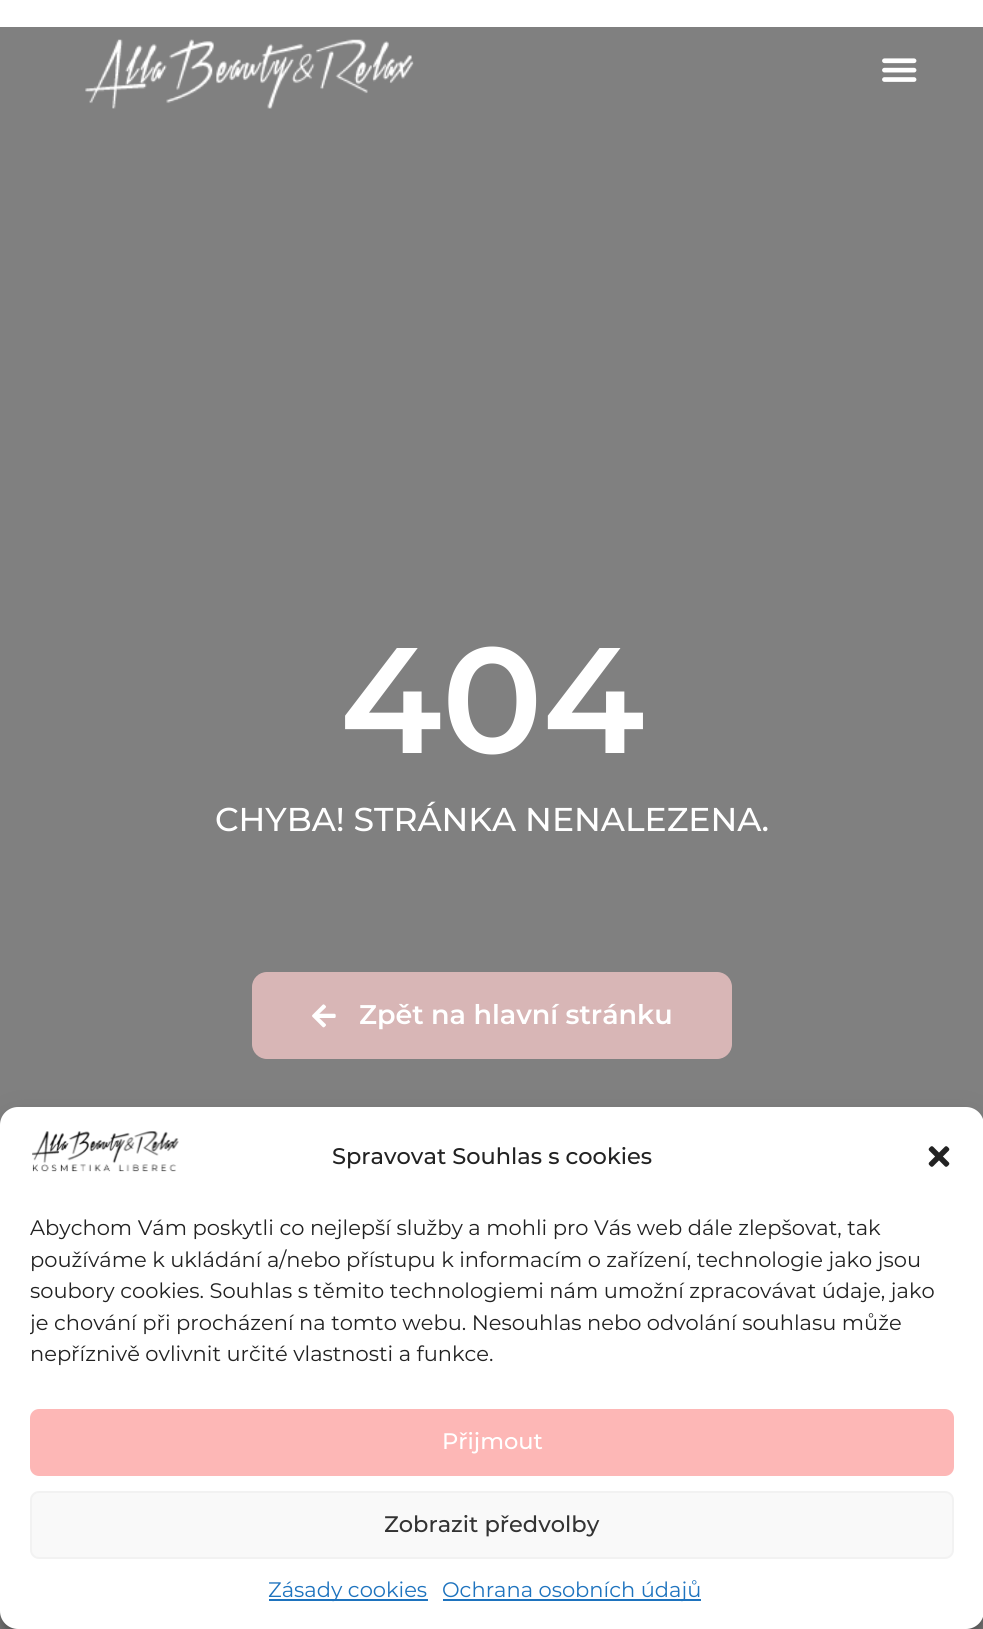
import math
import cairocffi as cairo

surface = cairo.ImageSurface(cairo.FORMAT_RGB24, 983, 1629)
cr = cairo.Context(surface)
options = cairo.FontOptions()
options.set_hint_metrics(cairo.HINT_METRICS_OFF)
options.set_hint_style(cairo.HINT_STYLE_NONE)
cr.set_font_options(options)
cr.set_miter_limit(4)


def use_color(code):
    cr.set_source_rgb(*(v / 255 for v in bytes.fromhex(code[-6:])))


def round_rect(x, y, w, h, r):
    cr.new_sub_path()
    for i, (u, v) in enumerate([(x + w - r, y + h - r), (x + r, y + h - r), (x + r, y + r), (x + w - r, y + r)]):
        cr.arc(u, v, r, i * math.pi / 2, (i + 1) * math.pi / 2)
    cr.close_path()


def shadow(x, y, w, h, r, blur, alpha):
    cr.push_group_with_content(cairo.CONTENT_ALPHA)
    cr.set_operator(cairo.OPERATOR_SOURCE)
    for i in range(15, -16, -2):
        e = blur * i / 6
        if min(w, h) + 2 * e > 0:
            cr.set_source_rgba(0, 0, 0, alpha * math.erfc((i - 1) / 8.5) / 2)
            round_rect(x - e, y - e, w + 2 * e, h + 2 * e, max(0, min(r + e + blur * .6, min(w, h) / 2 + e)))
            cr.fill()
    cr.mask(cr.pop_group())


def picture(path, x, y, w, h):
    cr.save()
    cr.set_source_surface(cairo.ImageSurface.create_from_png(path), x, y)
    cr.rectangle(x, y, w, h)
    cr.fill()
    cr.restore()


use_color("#ffffff")
cr.paint()
use_color("#808080")
cr.rectangle(0, 27, 983, 1602)
cr.fill()
picture("img1.png", 85, 39, 329, 70)
picture("img2.png", 882, 58, 35, 24)
cr.select_font_face("Montserrat SemiBold")
cr.set_font_size(150)
use_color("#ffffff")
cr.move_to(340, 753)
cr.show_text("404")
cr.select_font_face("Montserrat Medium")
cr.set_font_size(33)
cr.move_to(215, 831)
cr.show_text("CHYBA! STRÁNKA NENALEZENA.")
use_color("#d8b6b6")
round_rect(252, 972, 480, 87, 15)
cr.fill()
picture("img3.png", 312, 1004, 24, 24)
cr.select_font_face("Montserrat SemiBold")
cr.set_font_size(27)
use_color("#ffffff")
cr.move_to(359, 1024)
cr.show_text("Zpět na hlavní stránku")
use_color("#000000")
shadow(0, 1116, 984, 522, 18, 4.5, 0.23)
shadow(0, 1122, 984, 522, 18, 15, 0.19)
use_color("#ffffff")
round_rect(0, 1107, 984, 522, 18)
cr.fill()
picture("img4.png", 32, 1131, 147, 41)
cr.select_font_face("Montserrat Medium")
cr.set_font_size(22.5)
use_color("#222222")
cr.move_to(332, 1164)
cr.show_text("Spravovat Souhlas s cookies")
picture("img5.png", 928, 1146, 22, 21)
cr.select_font_face("Montserrat")
cr.set_font_size(21)
cr.move_to(30, 1235)
cr.show_text("Abychom Vám poskytli co nejlepší služby a mohli pro Vás web dále zlepšovat, tak")
cr.move_to(30, 1267)
cr.show_text("používáme k ukládání a/nebo přístupu k informacím o zařízení, technologie jako jsou")
cr.move_to(30, 1298)
cr.show_text("soubory cookies. Souhlas s těmito technologiemi nám umožní zpracovávat údaje, jako")
cr.save()
cr.rectangle(30, 1214, 924, 165)
cr.clip()
cr.move_to(30, 1330)
cr.show_text("je chování při procházení na tomto webu. Nesouhlas nebo odvolání souhlasu může")
cr.restore()
cr.move_to(30, 1361)
cr.show_text("nepříznivě ovlivnit určité vlastnosti a funkce.")
use_color("#fdb7b6")
round_rect(31, 1410, 922, 65, 8)
cr.fill_preserve()
cr.stroke()
cr.select_font_face("Montserrat Medium")
cr.set_font_size(22.5)
use_color("#ffffff")
cr.move_to(442, 1449)
cr.show_text("Přijmout")
use_color("#f9f9f9")
round_rect(31, 1492, 922, 66, 8)
cr.fill_preserve()
use_color("#f2f2f2")
cr.stroke()
use_color("#333333")
cr.move_to(384, 1532)
cr.show_text("Zobrazit předvolby")
use_color("#1e73be")
cr.rectangle(269, 1599, 159, 2)
cr.fill()
cr.select_font_face("Montserrat")
cr.set_font_size(21)
cr.move_to(268, 1597)
cr.show_text("Zásady cookies")
cr.rectangle(443, 1599, 258, 2)
cr.fill()
cr.move_to(442, 1597)
cr.show_text("Ochrana osobních údajů")
surface.write_to_png("result.png")
